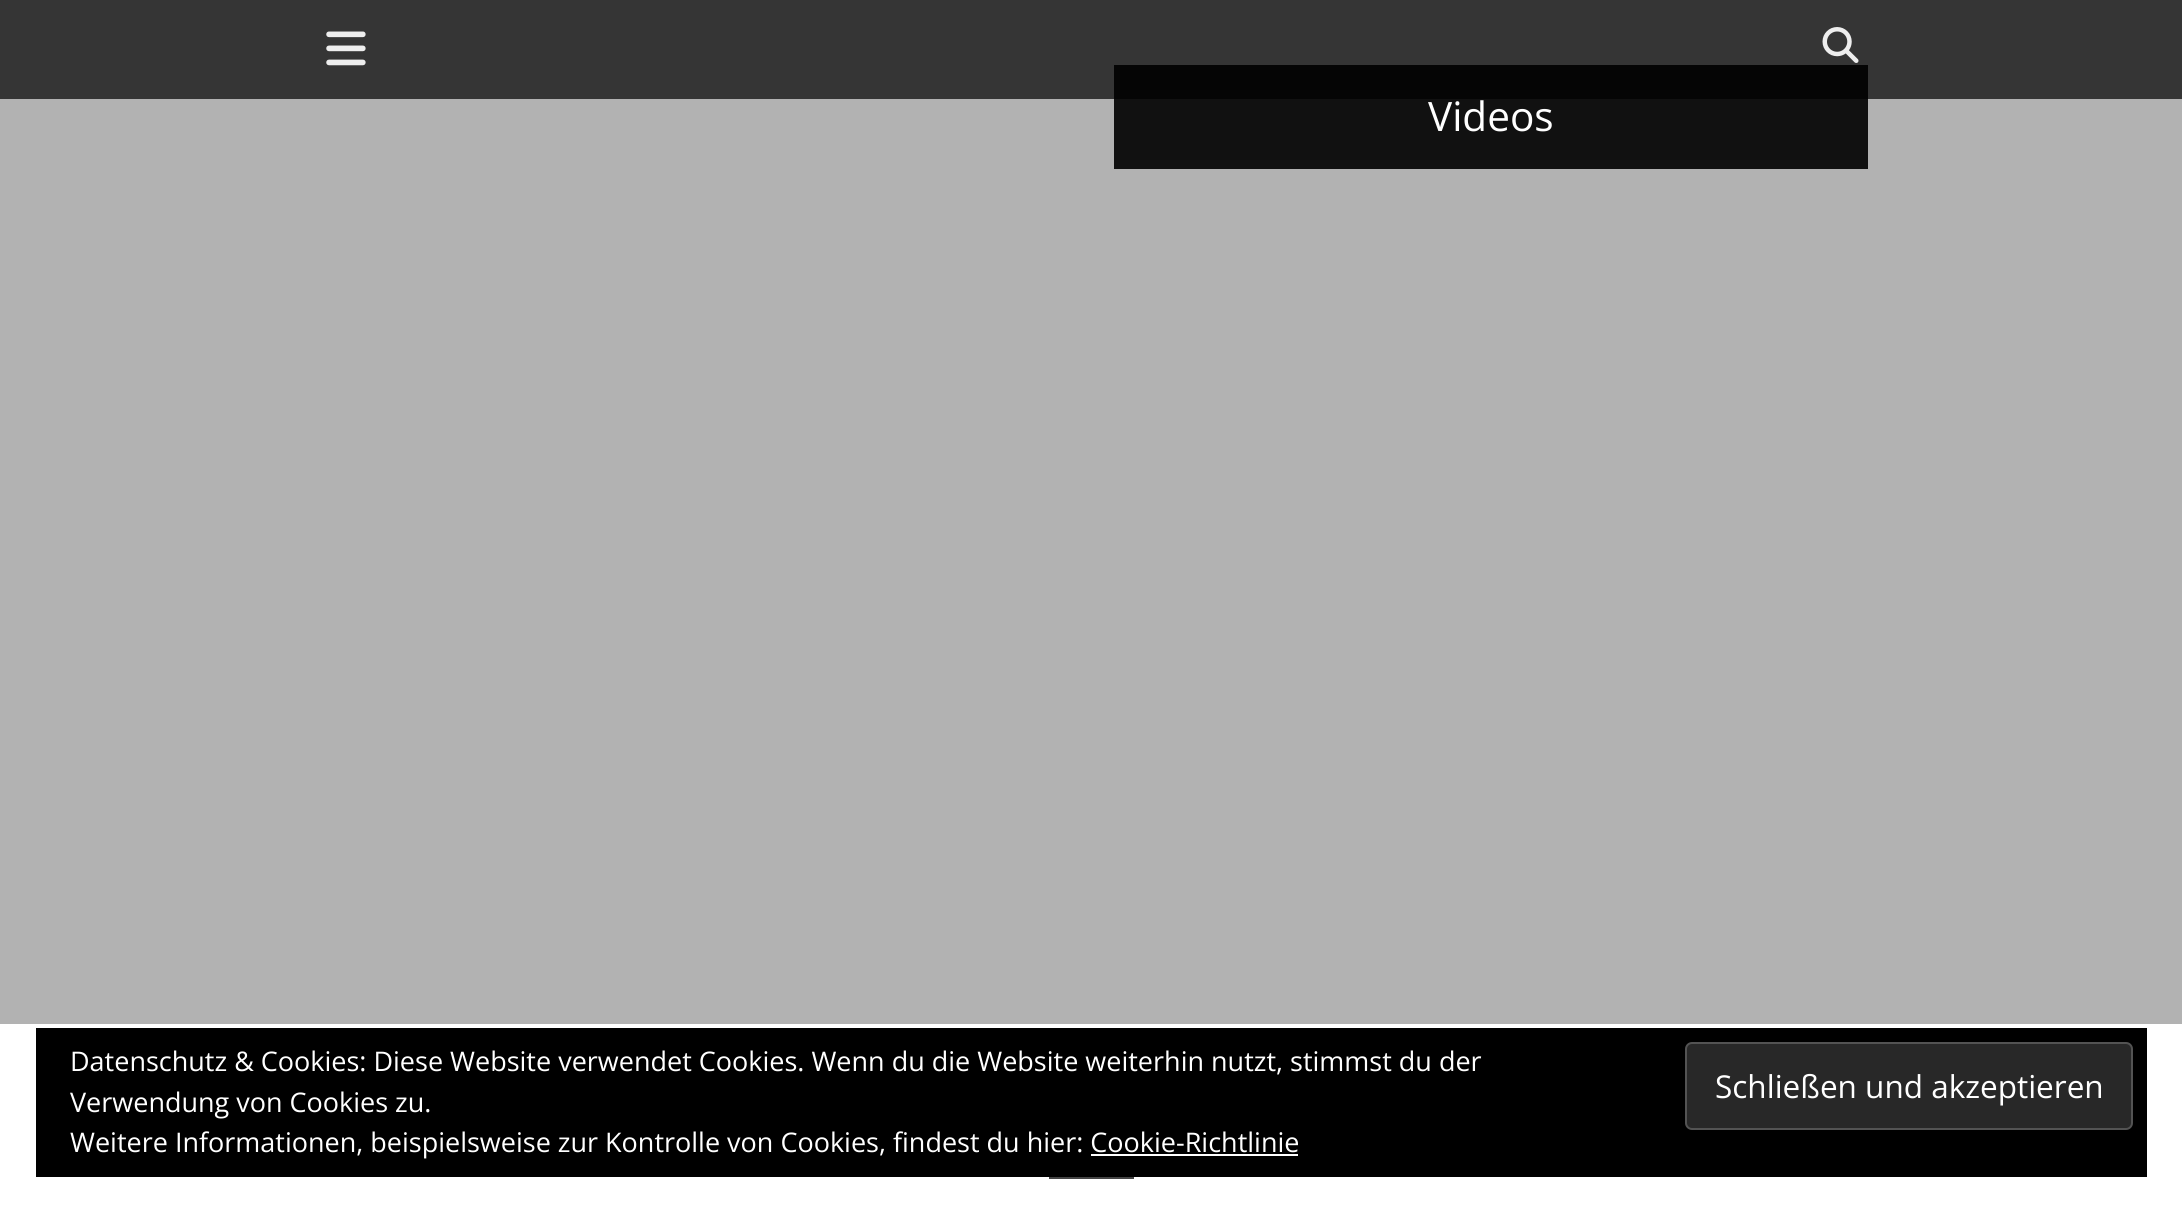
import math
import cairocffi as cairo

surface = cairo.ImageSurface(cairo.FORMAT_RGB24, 2182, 1211)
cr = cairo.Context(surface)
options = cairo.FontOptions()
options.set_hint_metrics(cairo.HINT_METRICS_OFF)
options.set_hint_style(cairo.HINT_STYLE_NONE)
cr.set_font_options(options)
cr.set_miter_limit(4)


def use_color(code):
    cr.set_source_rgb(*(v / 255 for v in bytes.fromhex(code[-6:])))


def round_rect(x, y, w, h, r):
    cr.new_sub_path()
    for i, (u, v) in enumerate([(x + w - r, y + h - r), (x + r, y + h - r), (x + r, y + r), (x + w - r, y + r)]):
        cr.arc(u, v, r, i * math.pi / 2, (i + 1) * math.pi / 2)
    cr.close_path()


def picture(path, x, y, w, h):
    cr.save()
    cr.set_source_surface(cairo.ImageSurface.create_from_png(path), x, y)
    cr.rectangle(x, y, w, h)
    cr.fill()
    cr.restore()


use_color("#b2b2b2")
cr.paint()
use_color("#353535")
cr.rectangle(0, 0, 2182, 99)
cr.fill()
picture("img1.png", 326, 31, 40, 35)
picture("img2.png", 1822, 27, 37, 36)
use_color("#111111")
cr.rectangle(1114, 99, 754, 70)
cr.fill()
use_color("#050505")
cr.rectangle(1114, 65, 754, 34)
cr.fill()
cr.select_font_face("Open Sans")
cr.set_font_size(40.5)
use_color("#ffffff")
cr.move_to(1428, 131)
cr.show_text("Videos")
cr.rectangle(0, 1024, 2182, 187)
cr.fill()
use_color("#444444")
cr.rectangle(1049, 1177, 85, 2)
cr.fill()
use_color("#000000")
cr.rectangle(36, 1028, 2111, 149)
cr.fill()
cr.set_font_size(27)
use_color("#ffffff")
cr.move_to(70, 1071)
cr.show_text("Datenschutz & Cookies: Diese Website verwendet Cookies. Wenn du die Website weiterhin nutzt, stimmst du der")
cr.move_to(70, 1112)
cr.show_text("Verwendung von Cookies zu.")
use_color("#282828")
round_rect(1686, 1043, 446, 86, 6)
cr.fill_preserve()
use_color("#535353")
cr.stroke()
cr.set_font_size(31.5)
use_color("#ffffff")
cr.move_to(1715, 1098)
cr.show_text("Schließen und akzeptieren")
cr.set_font_size(27)
cr.move_to(70, 1152)
cr.show_text("Weitere Informationen, beispielsweise zur Kontrolle von Cookies, findest du hier: Cookie-Richtlinie")
cr.rectangle(1091, 1154, 207, 2)
cr.fill()
surface.write_to_png("result.png")
